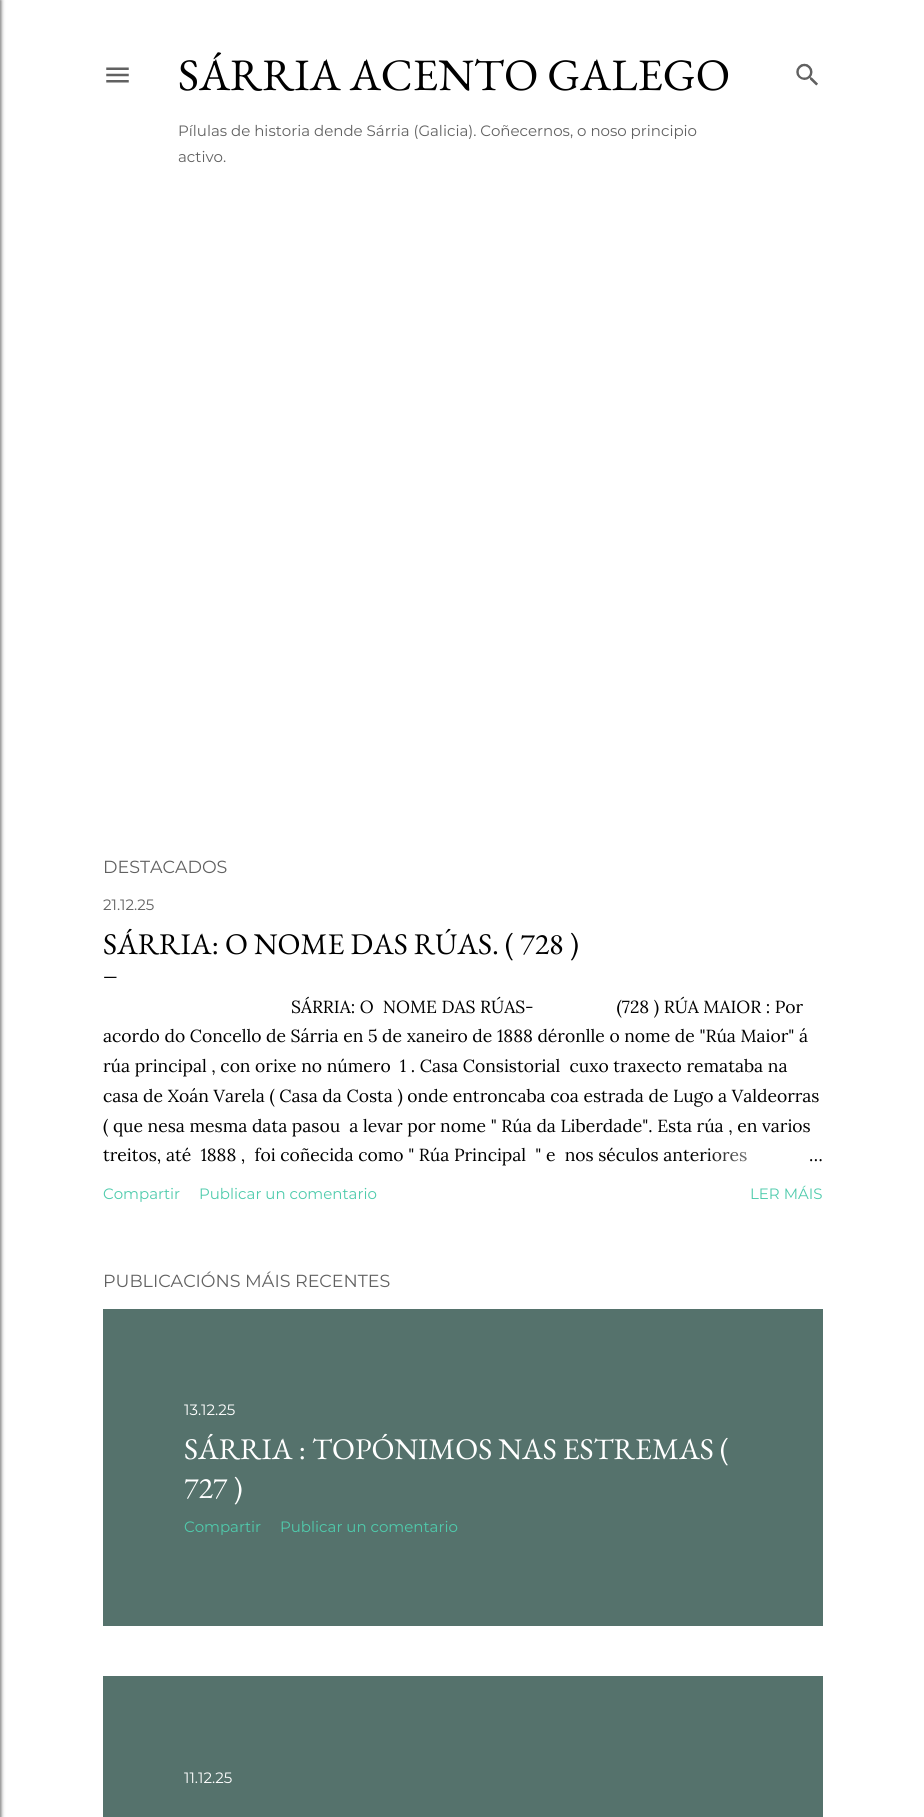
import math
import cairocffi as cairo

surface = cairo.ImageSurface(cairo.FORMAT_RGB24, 924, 1817)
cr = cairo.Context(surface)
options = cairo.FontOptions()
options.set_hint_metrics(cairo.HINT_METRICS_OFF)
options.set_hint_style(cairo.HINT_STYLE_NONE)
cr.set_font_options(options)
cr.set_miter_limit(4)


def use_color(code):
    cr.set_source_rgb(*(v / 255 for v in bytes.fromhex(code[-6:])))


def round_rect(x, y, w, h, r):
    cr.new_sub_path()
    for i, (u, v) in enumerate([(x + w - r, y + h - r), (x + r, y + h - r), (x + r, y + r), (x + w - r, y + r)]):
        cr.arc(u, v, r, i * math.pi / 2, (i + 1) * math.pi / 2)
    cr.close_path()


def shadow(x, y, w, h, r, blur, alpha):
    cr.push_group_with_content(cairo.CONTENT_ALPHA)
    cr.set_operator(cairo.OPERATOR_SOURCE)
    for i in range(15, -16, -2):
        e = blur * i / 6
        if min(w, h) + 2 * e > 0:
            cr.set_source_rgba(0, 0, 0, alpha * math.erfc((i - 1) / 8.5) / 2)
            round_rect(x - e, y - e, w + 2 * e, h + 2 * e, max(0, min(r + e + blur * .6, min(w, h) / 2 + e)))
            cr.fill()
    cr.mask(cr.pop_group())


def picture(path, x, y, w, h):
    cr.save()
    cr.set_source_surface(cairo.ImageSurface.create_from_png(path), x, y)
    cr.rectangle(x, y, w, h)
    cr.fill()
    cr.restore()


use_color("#ffffff")
cr.paint()
use_color("#616161")
shadow(-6, 0, 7, 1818, 0, 2, 1)
picture("img1.png", 106, 67, 23, 16)
cr.select_font_face("EB Garamond")
cr.set_font_size(45)
use_color("#000000")
cr.move_to(178, 90)
cr.show_text("SÁRRIA ACENTO GALEGO")
cr.select_font_face("Montserrat")
cr.set_font_size(15)
use_color("#616161")
cr.move_to(178, 136)
cr.show_text("Pílulas de historia dende Sárria (Galicia). Coñecernos, o noso principio")
cr.move_to(178, 162)
cr.show_text("activo.")
picture("img2.png", 796, 63, 22, 23)
cr.set_font_size(17.5)
cr.move_to(103, 873)
cr.show_text("DESTACADOS")
cr.set_font_size(15)
cr.move_to(103, 910)
cr.show_text("21.12.25")
cr.select_font_face("EB Garamond")
cr.set_font_size(30)
use_color("#000000")
cr.move_to(103, 954)
cr.show_text("SÁRRIA: O NOME DAS RÚAS. ( 728 )")
cr.select_font_face("Lora")
cr.set_font_size(17.5)
cr.move_to(103, 983)
cr.show_text("—")
cr.move_to(291, 1013)
cr.show_text("SÁRRIA: O  NOME DAS RÚAS-                  (728 ) RÚA MAIOR : Por")
cr.move_to(103, 1042)
cr.show_text("acordo do Concello de Sárria en 5 de xaneiro de 1888 déronlle o nome de \"Rúa Maior\" á")
cr.move_to(103, 1072)
cr.show_text("rúa principal , con orixe no número  1 . Casa Consistorial  cuxo traxecto remataba na")
cr.move_to(103, 1102)
cr.show_text("casa de Xoán Varela ( Casa da Costa ) onde entroncaba coa estrada de Lugo a Valdeorras")
cr.move_to(103, 1132)
cr.show_text("( que nesa mesma data pasou  a levar por nome \" Rúa da Liberdade\". Esta rúa , en varios")
cr.move_to(103, 1161)
cr.show_text("treitos, até  1888 ,  foi coñecida como \" Rúa Principal  \" e  nos séculos anteriores")
gradient = cairo.LinearGradient(823, 1156, 703, 1156)
gradient.add_color_stop_rgba(0, 1, 1, 1, 1)
gradient.add_color_stop_rgba(0.2, 1, 1, 1, 1)
gradient.add_color_stop_rgba(1, 1, 1, 1, 0)
cr.set_source(gradient)
cr.rectangle(705, 1148, 41, 14)
cr.fill()
use_color("#000000")
cr.move_to(809, 1161)
cr.show_text("…")
cr.select_font_face("Montserrat")
cr.set_font_size(15)
use_color("#4fcbac")
cr.move_to(103, 1199)
cr.show_text("Compartir")
cr.move_to(199, 1199)
cr.show_text("Publicar un comentario")
cr.move_to(750, 1199)
cr.show_text("LER MÁIS")
cr.set_font_size(17.5)
use_color("#616161")
cr.move_to(103, 1287)
cr.show_text("PUBLICACIÓNS MÁIS RECENTES")
use_color("#55726c")
cr.rectangle(103, 1309, 720, 317)
cr.fill()
cr.set_font_size(15)
use_color("#ffffff")
cr.move_to(184, 1415)
cr.show_text("13.12.25")
cr.select_font_face("EB Garamond")
cr.set_font_size(30)
cr.move_to(184, 1459)
cr.show_text("SÁRRIA : TOPÓNIMOS NAS ESTREMAS (")
cr.move_to(184, 1498)
cr.show_text("727 )")
cr.select_font_face("Montserrat")
cr.set_font_size(15)
use_color("#4fcbac")
cr.move_to(184, 1532)
cr.show_text("Compartir")
cr.move_to(280, 1532)
cr.show_text("Publicar un comentario")
use_color("#55726c")
cr.rectangle(103, 1676, 720, 141)
cr.fill()
use_color("#ffffff")
cr.move_to(184, 1783)
cr.show_text("11.12.25")
surface.write_to_png("result.png")
